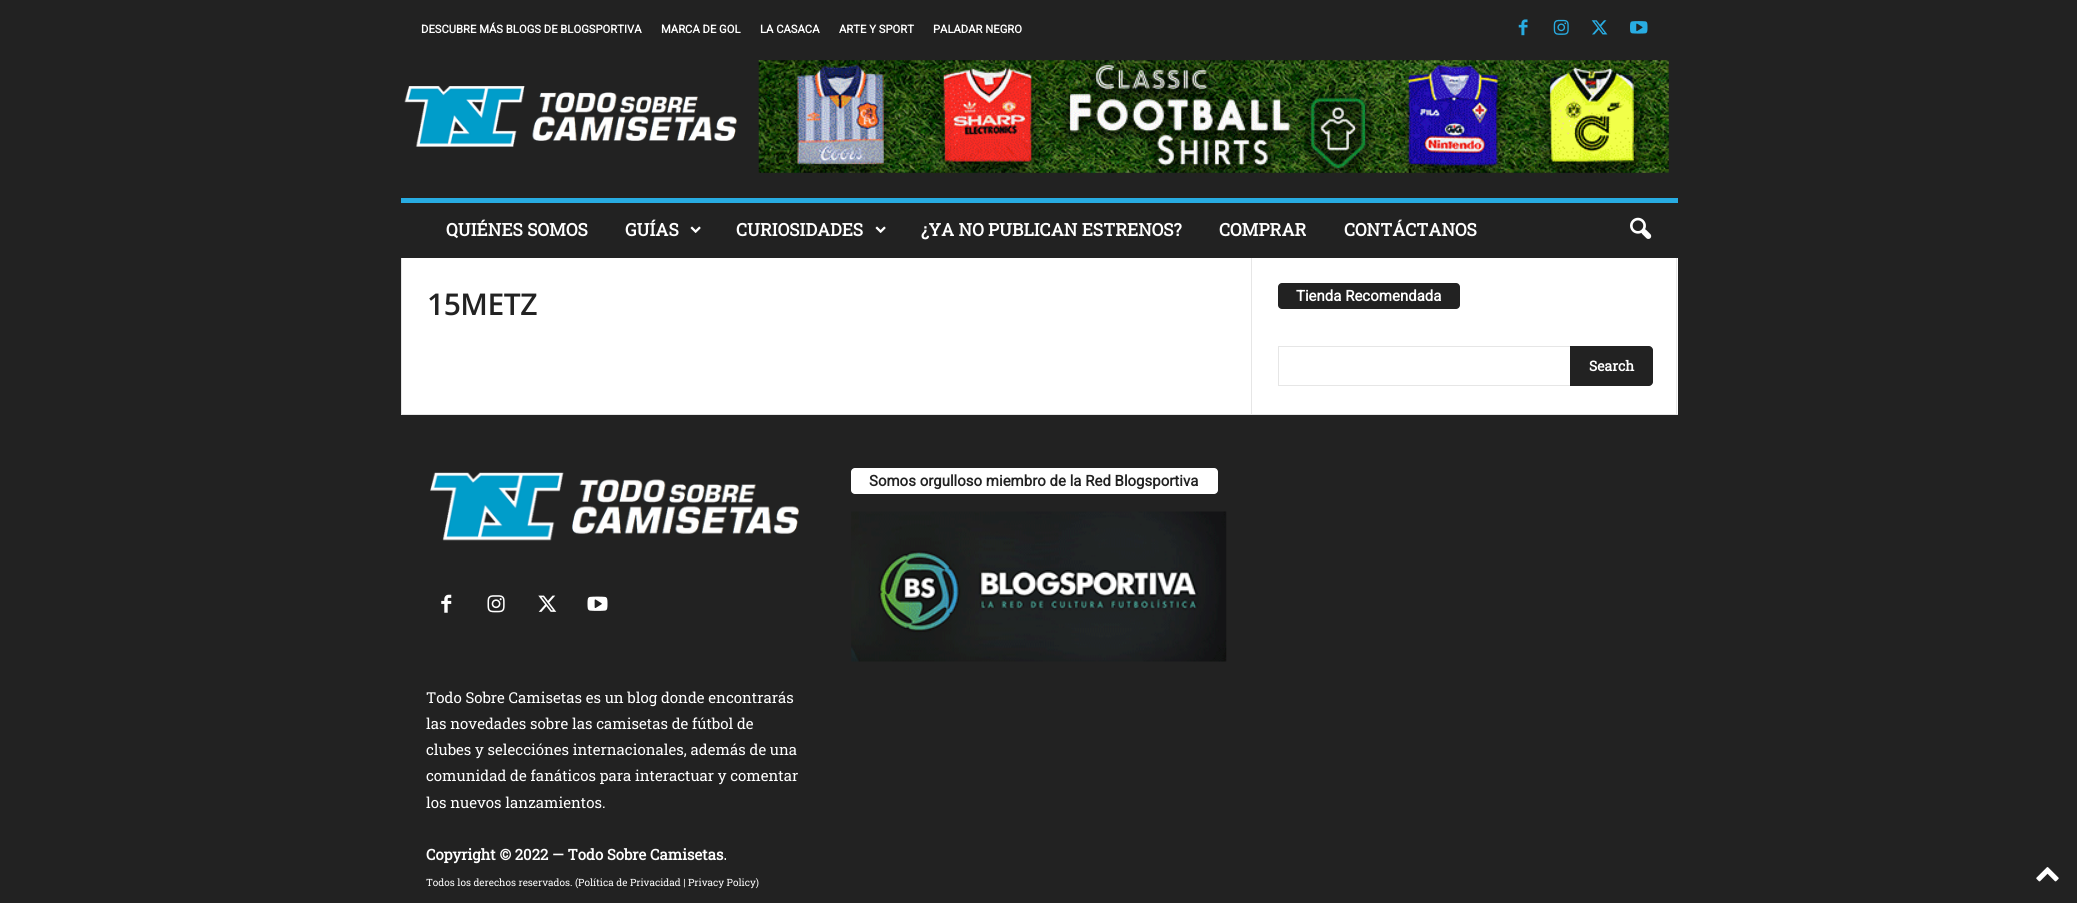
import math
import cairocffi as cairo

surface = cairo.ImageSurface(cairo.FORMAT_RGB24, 2077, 903)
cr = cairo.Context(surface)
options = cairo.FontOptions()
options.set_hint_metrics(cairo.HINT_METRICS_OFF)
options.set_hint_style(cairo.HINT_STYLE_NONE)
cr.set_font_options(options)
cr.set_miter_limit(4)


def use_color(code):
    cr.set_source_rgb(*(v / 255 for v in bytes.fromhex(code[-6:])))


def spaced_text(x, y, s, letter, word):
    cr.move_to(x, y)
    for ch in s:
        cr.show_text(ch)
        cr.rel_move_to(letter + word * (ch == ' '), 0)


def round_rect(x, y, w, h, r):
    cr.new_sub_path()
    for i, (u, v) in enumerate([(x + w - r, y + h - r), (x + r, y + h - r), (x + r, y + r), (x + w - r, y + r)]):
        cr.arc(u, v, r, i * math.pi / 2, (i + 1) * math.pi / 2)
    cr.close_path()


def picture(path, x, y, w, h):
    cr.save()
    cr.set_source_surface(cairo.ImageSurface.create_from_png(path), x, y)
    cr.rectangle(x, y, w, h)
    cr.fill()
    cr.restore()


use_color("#222222")
cr.paint()
cr.select_font_face("Roboto", cairo.FONT_SLANT_NORMAL, cairo.FONT_WEIGHT_BOLD)
cr.set_font_size(11.25)
use_color("#ffffff")
cr.move_to(421, 33)
cr.show_text("DESCUBRE MÁS BLOGS DE BLOGSPORTIVA")
cr.move_to(661, 33)
cr.show_text("MARCA DE GOL")
cr.move_to(760, 33)
cr.show_text("LA CASACA")
cr.move_to(839, 33)
cr.show_text("ARTE Y SPORT")
cr.move_to(933, 33)
cr.show_text("PALADAR NEGRO")
picture("img1.png", 1518, 19, 10, 17)
picture("img2.png", 1553, 19, 16, 16)
picture("img3.png", 1591, 20, 17, 15)
picture("img4.png", 1630, 21, 18, 13)
picture("img5.png", 404, 86, 333, 61)
picture("img6.png", 758, 60, 911, 113)
use_color("#28ace2")
cr.rectangle(401, 198, 1277, 5)
cr.fill()
cr.select_font_face("Roboto Slab", cairo.FONT_SLANT_NORMAL, cairo.FONT_WEIGHT_BOLD)
cr.set_font_size(17.5)
use_color("#ffffff")
cr.move_to(446, 236)
cr.show_text("QUIÉNES SOMOS")
cr.move_to(625, 236)
cr.show_text("GUÍAS")
picture("img7.png", 690, 226, 11, 7)
cr.move_to(736, 236)
cr.show_text("CURIOSIDADES")
picture("img7.png", 875, 226, 11, 7)
cr.move_to(921, 236)
cr.show_text("¿YA NO PUBLICAN ESTRENOS?")
cr.move_to(1219, 236)
cr.show_text("COMPRAR")
cr.move_to(1344, 236)
cr.show_text("CONTÁCTANOS")
picture("img8.png", 1630, 217, 22, 22)
cr.rectangle(402, 258, 1276, 156)
cr.fill()
use_color("#e6e6e6")
cr.rectangle(401, 414, 1277, 1)
cr.fill()
cr.rectangle(401, 258, 1, 156)
cr.fill()
cr.select_font_face("Open Sans SemiBold")
cr.set_font_size(30)
use_color("#222222")
spaced_text(427, 315, "15METZ", -0.5, 0)
use_color("#e6e6e6")
cr.rectangle(1251, 258, 1, 156)
cr.fill()
use_color("#222222")
round_rect(1278, 283, 182, 26, 4)
cr.fill()
cr.select_font_face("Roboto", cairo.FONT_SLANT_NORMAL, cairo.FONT_WEIGHT_BOLD)
cr.set_font_size(15)
use_color("#ffffff")
cr.move_to(1296, 301)
cr.show_text("Tienda Recomendada")
use_color("#e6e6e6")
cr.rectangle(1278, 346, 292, 1)
cr.fill()
cr.rectangle(1278, 385, 292, 1)
cr.fill()
cr.rectangle(1278, 346, 1, 40)
cr.fill()
use_color("#222222")
cr.new_path()
cr.move_to(1570, 346)
cr.line_to(1649, 346)
cr.curve_to(1651, 346, 1653, 348, 1653, 350)
cr.line_to(1653, 382)
cr.curve_to(1653, 384, 1651, 386, 1649, 386)
cr.line_to(1570, 386)
cr.close_path()
cr.fill()
cr.select_font_face("Roboto Slab", cairo.FONT_SLANT_NORMAL, cairo.FONT_WEIGHT_BOLD)
cr.set_font_size(14)
use_color("#ffffff")
cr.move_to(1589, 371)
cr.show_text("Search")
use_color("#e6e6e6")
cr.rectangle(1676, 258, 1, 156)
cr.fill()
use_color("#ffffff")
round_rect(851, 468, 367, 26, 4)
cr.fill()
cr.select_font_face("Roboto", cairo.FONT_SLANT_NORMAL, cairo.FONT_WEIGHT_BOLD)
cr.set_font_size(15)
use_color("#222222")
cr.move_to(869, 486)
cr.show_text("Somos orgulloso miembro de la Red Blogsportiva")
picture("img9.png", 851, 511, 376, 151)
picture("img10.png", 430, 472, 369, 69)
picture("img11.png", 441, 594, 11, 19)
picture("img12.png", 487, 595, 18, 18)
picture("img13.png", 538, 595, 19, 17)
picture("img14.png", 587, 596, 21, 15)
cr.select_font_face("Roboto Slab")
use_color("#ffffff")
cr.move_to(426, 703)
cr.show_text("Todo Sobre Camisetas es un blog donde encontrarás")
cr.move_to(426, 729)
cr.show_text("las novedades sobre las camisetas de fútbol de")
cr.move_to(426, 755)
cr.show_text("clubes y selecciónes internacionales, además de una")
cr.move_to(426, 781)
cr.show_text("comunidad de fanáticos para interactuar y comentar")
cr.move_to(426, 808)
cr.show_text("los nuevos lanzamientos.")
cr.select_font_face("Roboto Slab", cairo.FONT_SLANT_NORMAL, cairo.FONT_WEIGHT_BOLD)
cr.move_to(426, 860)
cr.show_text("Copyright © 2022 — Todo Sobre Camisetas.")
cr.select_font_face("Roboto Slab")
cr.set_font_size(10)
cr.move_to(426, 886)
cr.show_text("Todos los derechos reservados. (Política de Privacidad | Privacy Policy)")
picture("img15.png", 2036, 867, 23, 15)
surface.write_to_png("result.png")
